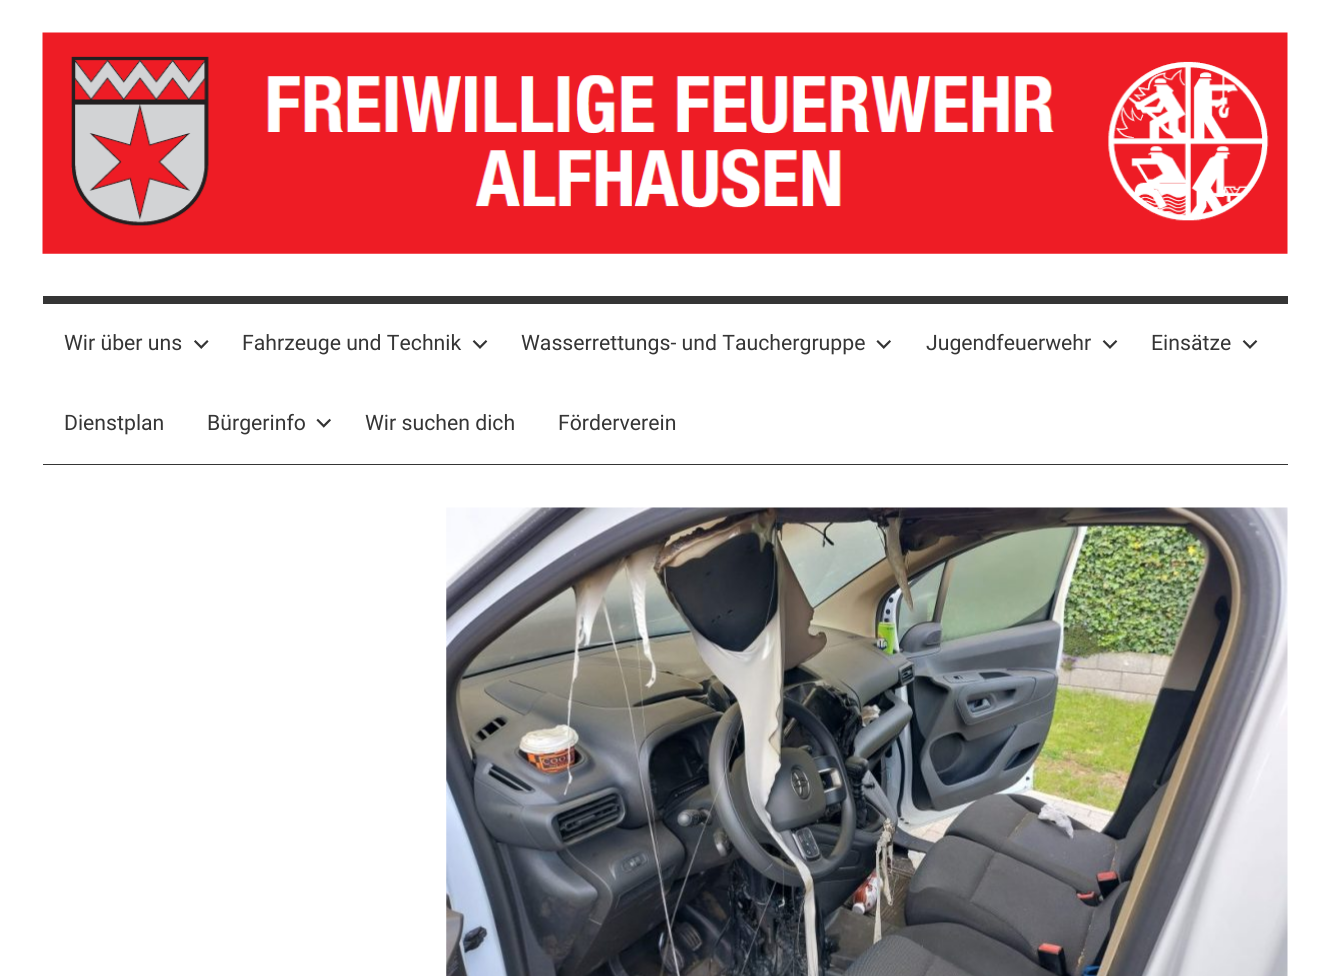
import math
import cairocffi as cairo

surface = cairo.ImageSurface(cairo.FORMAT_RGB24, 1330, 976)
cr = cairo.Context(surface)
options = cairo.FontOptions()
options.set_hint_metrics(cairo.HINT_METRICS_OFF)
options.set_hint_style(cairo.HINT_STYLE_NONE)
cr.set_font_options(options)
cr.set_miter_limit(4)


def use_color(code):
    cr.set_source_rgb(*(v / 255 for v in bytes.fromhex(code[-6:])))


def picture(path, x, y, w, h):
    cr.save()
    cr.set_source_surface(cairo.ImageSurface.create_from_png(path), x, y)
    cr.rectangle(x, y, w, h)
    cr.fill()
    cr.restore()


use_color("#ffffff")
cr.paint()
picture("img1.png", 42, 32, 1246, 222)
use_color("#353535")
cr.rectangle(43, 296, 1245, 8)
cr.fill()
cr.rectangle(43, 464, 1245, 1)
cr.fill()
cr.select_font_face("Roboto")
cr.set_font_size(21.25)
cr.move_to(64, 350)
cr.show_text("Wir über uns")
picture("img2.png", 194, 340, 15, 9)
cr.move_to(242, 350)
cr.show_text("Fahrzeuge und Technik")
picture("img3.png", 472, 340, 16, 9)
cr.move_to(521, 350)
cr.show_text("Wasserrettungs- und Tauchergruppe")
picture("img4.png", 876, 340, 15, 9)
cr.move_to(926, 350)
cr.show_text("Jugendfeuerwehr")
picture("img3.png", 1102, 340, 16, 9)
cr.move_to(1151, 350)
cr.show_text("Einsätze")
picture("img3.png", 1242, 340, 16, 9)
cr.move_to(64, 430)
cr.show_text("Dienstplan")
cr.move_to(207, 430)
cr.show_text("Bürgerinfo")
picture("img5.png", 316, 418, 15, 10)
cr.move_to(365, 430)
cr.show_text("Wir suchen dich")
cr.move_to(558, 430)
cr.show_text("Förderverein")
picture("img6.png", 446, 507, 842, 469)
surface.write_to_png("result.png")
